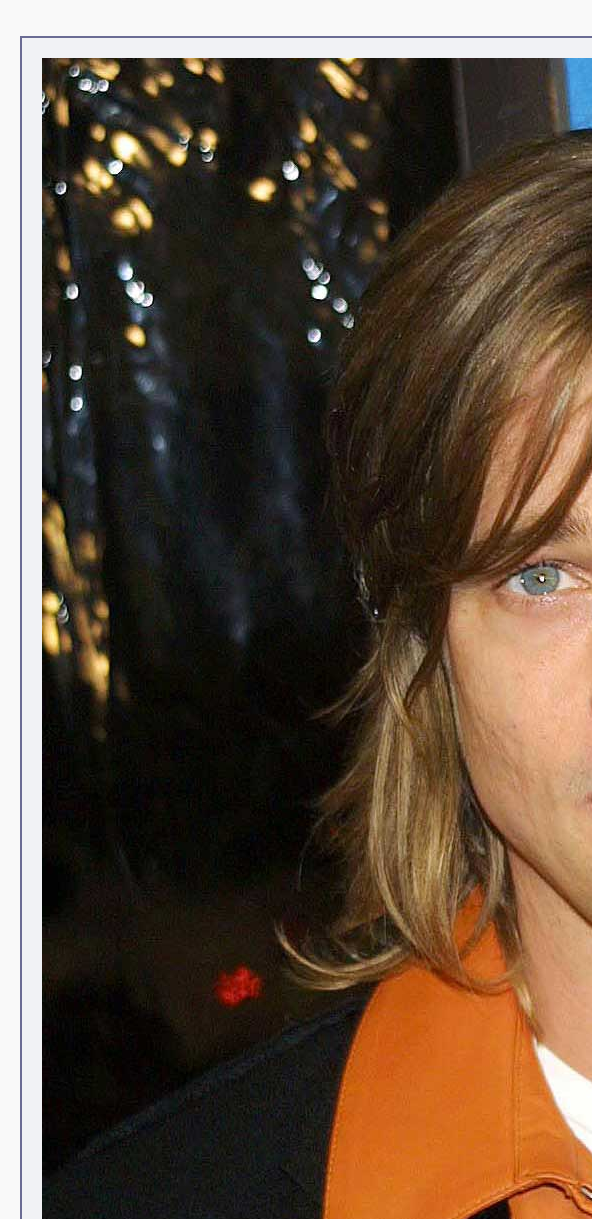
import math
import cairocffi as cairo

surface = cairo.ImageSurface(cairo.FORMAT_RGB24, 592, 1219)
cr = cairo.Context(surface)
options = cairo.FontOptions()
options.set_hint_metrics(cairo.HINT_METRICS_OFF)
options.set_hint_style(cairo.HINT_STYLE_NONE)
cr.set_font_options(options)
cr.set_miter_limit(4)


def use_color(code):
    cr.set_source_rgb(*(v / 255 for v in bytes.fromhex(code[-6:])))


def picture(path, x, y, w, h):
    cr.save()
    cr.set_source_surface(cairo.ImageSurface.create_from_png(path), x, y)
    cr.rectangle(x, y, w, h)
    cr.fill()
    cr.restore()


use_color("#f9f9f9")
cr.paint()
use_color("#f1f2f5")
cr.rectangle(22, 38, 570, 1181)
cr.fill()
cr.rectangle(20.5, 36.5, 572, 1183)
use_color("#6b6c94")
cr.set_line_width(1)
cr.stroke()
cr.rectangle(21.5, 37.5, 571, 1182)
cr.stroke()
picture("img1.png", 42, 58, 550, 1161)
surface.write_to_png("result.png")
